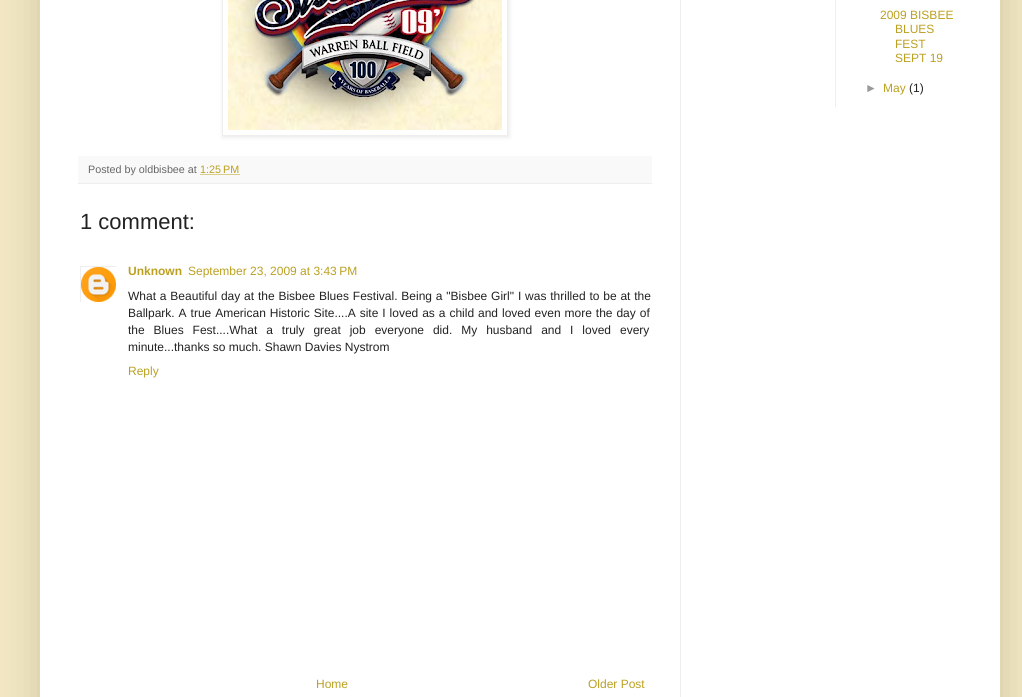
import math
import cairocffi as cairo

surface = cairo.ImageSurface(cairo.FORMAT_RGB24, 1022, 697)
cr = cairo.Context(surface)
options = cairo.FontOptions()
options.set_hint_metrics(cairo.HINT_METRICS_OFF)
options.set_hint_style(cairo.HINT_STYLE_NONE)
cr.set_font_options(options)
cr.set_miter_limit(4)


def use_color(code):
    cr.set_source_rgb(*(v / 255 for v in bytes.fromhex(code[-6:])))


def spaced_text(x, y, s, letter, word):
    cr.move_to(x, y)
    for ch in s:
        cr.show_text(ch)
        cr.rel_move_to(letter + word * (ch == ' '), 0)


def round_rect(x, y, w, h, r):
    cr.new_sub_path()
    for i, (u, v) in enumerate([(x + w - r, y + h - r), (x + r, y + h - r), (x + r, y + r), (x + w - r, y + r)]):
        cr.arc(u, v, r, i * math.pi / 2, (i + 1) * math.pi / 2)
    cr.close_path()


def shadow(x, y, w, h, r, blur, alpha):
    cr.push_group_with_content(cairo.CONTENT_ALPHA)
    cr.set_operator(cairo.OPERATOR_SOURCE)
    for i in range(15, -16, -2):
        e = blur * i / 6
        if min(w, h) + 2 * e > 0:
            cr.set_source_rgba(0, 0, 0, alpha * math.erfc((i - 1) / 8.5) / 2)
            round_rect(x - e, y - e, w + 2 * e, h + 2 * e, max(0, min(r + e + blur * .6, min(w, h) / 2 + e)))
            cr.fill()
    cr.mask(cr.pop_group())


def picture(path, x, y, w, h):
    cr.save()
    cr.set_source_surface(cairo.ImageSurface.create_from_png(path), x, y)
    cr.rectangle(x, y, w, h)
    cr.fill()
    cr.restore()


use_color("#f2e7c2")
cr.paint()
use_color("#000000")
shadow(40, -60, 960, 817, 0, 20, 0.15)
use_color("#ffffff")
cr.rectangle(40, 0, 960, 697)
cr.fill()
use_color("#eeeeee")
cr.rectangle(680, 0, 1, 697)
cr.fill()
cr.rectangle(835, 0, 1, 107)
cr.fill()
cr.select_font_face("Liberation Sans")
cr.set_font_size(12)
use_color("#bba021")
cr.move_to(880, 19)
cr.show_text("2009 BISBEE")
cr.move_to(895, 33)
cr.show_text("BLUES")
cr.move_to(895, 48)
cr.show_text("FEST")
cr.move_to(895, 62)
cr.show_text("SEPT 19")
use_color("#999999")
cr.move_to(865, 92)
cr.show_text("►")
use_color("#bba021")
cr.move_to(883, 92)
cr.show_text("May")
use_color("#222222")
cr.move_to(909, 92)
cr.show_text("(1)")
cr.save()
cr.set_fill_rule(cairo.FILL_RULE_EVEN_ODD)
cr.new_path()
cr.move_to(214, 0)
cr.line_to(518, 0)
cr.line_to(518, 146)
cr.line_to(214, 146)
cr.close_path()
cr.move_to(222, -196)
cr.line_to(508, -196)
cr.line_to(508, 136)
cr.line_to(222, 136)
cr.close_path()
cr.clip()
use_color("#000000")
shadow(223, -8, 286, 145, 0, 2.5, 0.1)
cr.restore()
cr.rectangle(222.5, -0.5, 285, 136)
use_color("#eeeeee")
cr.set_line_width(1)
cr.stroke()
picture("img1.png", 228, 0, 274, 130)
use_color("#f9f9f9")
cr.rectangle(78, 156, 574, 27)
cr.fill()
use_color("#eeeeee")
cr.rectangle(78, 183, 574, 1)
cr.fill()
cr.set_font_size(10.75)
use_color("#666666")
cr.move_to(88, 173)
cr.show_text("Posted by oldbisbee at")
use_color("#bba021")
cr.move_to(200, 173)
cr.show_text("1:25 PM")
cr.new_path()
cr.move_to(200.5, 174.5)
cr.line_to(239.5, 174.5)
cr.set_dash([1, 1])
cr.stroke()
cr.set_font_size(22)
use_color("#222222")
cr.move_to(80, 229)
cr.show_text("1 comment:")
cr.save()
cr.rectangle(80, 266, 36, 36)
cr.clip()
cr.rectangle(80.5, 266.5, 36, 36)
use_color("#eeeeee")
cr.set_dash([])
cr.stroke()
cr.restore()
picture("img2.png", 81, 267, 35, 35)
cr.select_font_face("Liberation Sans", cairo.FONT_SLANT_NORMAL, cairo.FONT_WEIGHT_BOLD)
cr.set_font_size(12)
use_color("#bba021")
cr.move_to(128, 275)
cr.show_text("Unknown")
cr.select_font_face("Liberation Sans")
cr.move_to(188, 275)
cr.show_text("September 23, 2009 at 3:43 PM")
use_color("#222222")
spaced_text(128, 300, "What a Beautiful day at the Bisbee Blues Festival. Being a \"Bisbee Girl\" I was thrilled to be at the", 0, 0.5)
spaced_text(128, 317, "Ballpark. A true American Historic Site....A site I loved as a child and loved even more the day of", 0, 0.6)
spaced_text(128, 334, "the Blues Fest....What a truly great job everyone did. My husband and I loved every", 0, 5.6)
cr.move_to(128, 351)
cr.show_text("minute...thanks so much. Shawn Davies Nystrom")
use_color("#bba021")
cr.move_to(128, 375)
cr.show_text("Reply")
cr.move_to(316, 688)
cr.show_text("Home")
cr.move_to(588, 688)
cr.show_text("Older Post")
surface.write_to_png("result.png")
